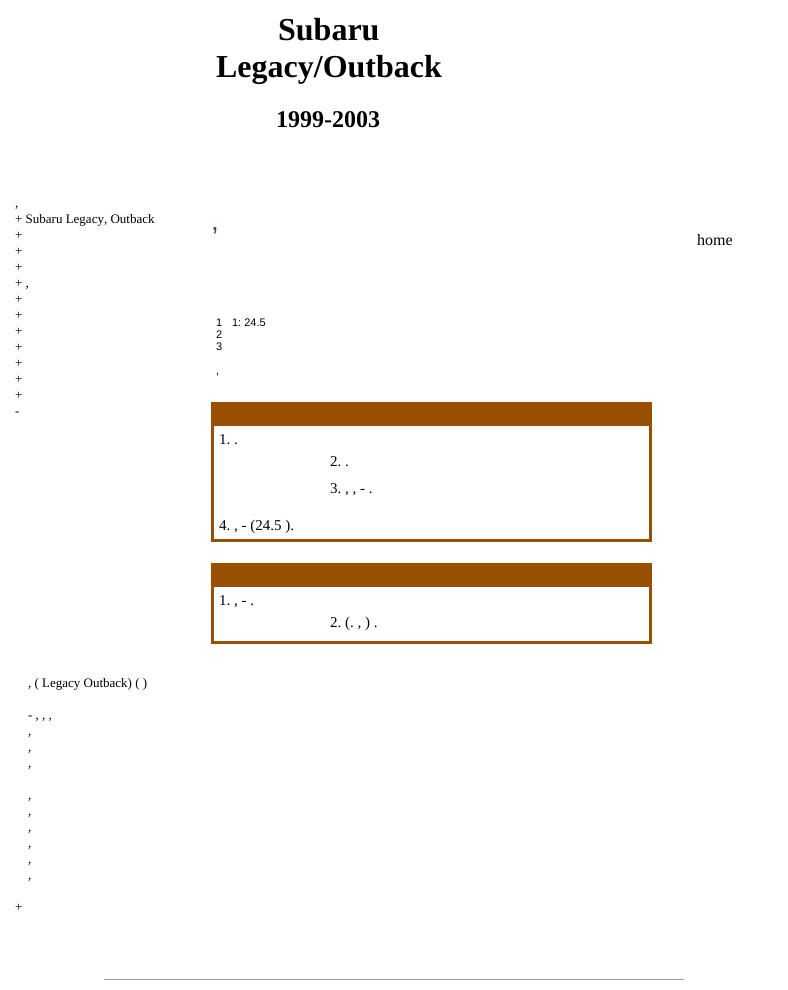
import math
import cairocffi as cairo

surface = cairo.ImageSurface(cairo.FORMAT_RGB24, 788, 990)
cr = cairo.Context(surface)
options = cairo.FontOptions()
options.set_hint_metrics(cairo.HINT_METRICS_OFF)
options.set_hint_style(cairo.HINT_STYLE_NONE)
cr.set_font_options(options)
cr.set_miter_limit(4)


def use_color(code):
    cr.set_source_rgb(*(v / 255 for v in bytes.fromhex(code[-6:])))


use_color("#ffffff")
cr.paint()
cr.select_font_face("Liberation Serif", cairo.FONT_SLANT_NORMAL, cairo.FONT_WEIGHT_BOLD)
cr.set_font_size(32)
use_color("#000000")
cr.move_to(278, 40)
cr.show_text("Subaru")
cr.move_to(216, 77)
cr.show_text("Legacy/Outback")
cr.set_font_size(24)
cr.move_to(276, 127)
cr.show_text("1999-2003")
cr.select_font_face("Liberation Serif")
cr.set_font_size(13)
cr.move_to(15, 207)
cr.show_text(",")
cr.move_to(15, 223)
cr.show_text("+ Subaru Legacy, Outback")
cr.move_to(15, 239)
cr.show_text("+")
cr.move_to(15, 255)
cr.show_text("+")
cr.move_to(15, 271)
cr.show_text("+")
cr.move_to(15, 287)
cr.show_text("+ ,")
cr.move_to(15, 303)
cr.show_text("+")
cr.move_to(15, 319)
cr.show_text("+")
cr.move_to(15, 335)
cr.show_text("+")
cr.move_to(15, 351)
cr.show_text("+")
cr.move_to(15, 367)
cr.show_text("+")
cr.move_to(15, 383)
cr.show_text("+")
cr.move_to(15, 399)
cr.show_text("+")
cr.move_to(15, 415)
cr.show_text("-")
cr.move_to(28, 687)
cr.show_text(", ( Legacy Outback) ( )")
cr.move_to(28, 719)
cr.show_text("- , , ,")
cr.move_to(28, 735)
cr.show_text(",")
cr.move_to(28, 751)
cr.show_text(",")
cr.move_to(28, 767)
cr.show_text(",")
cr.move_to(28, 799)
cr.show_text(",")
cr.move_to(28, 815)
cr.show_text(",")
cr.move_to(28, 831)
cr.show_text(",")
cr.move_to(28, 847)
cr.show_text(",")
cr.move_to(28, 863)
cr.show_text(",")
cr.move_to(28, 879)
cr.show_text(",")
cr.move_to(15, 911)
cr.show_text("+")
cr.select_font_face("Liberation Sans")
cr.set_font_size(28)
use_color("#684330")
cr.move_to(211, 230)
cr.show_text(",")
cr.set_font_size(11)
use_color("#000000")
cr.move_to(216, 326)
cr.show_text("1")
cr.move_to(216, 338)
cr.show_text("2")
cr.move_to(216, 350)
cr.show_text("3")
cr.move_to(216, 374)
cr.show_text(",")
cr.move_to(232, 326)
cr.show_text("1: 24.5")
use_color("#984f00")
cr.rectangle(211, 402, 441, 140)
cr.fill()
use_color("#ffffff")
cr.rectangle(214, 426, 435, 113)
cr.fill()
cr.select_font_face("Liberation Serif")
cr.set_font_size(15)
use_color("#000000")
cr.move_to(219, 444)
cr.show_text("1. .")
cr.move_to(330, 466)
cr.show_text("2. .")
cr.move_to(330, 493)
cr.show_text("3. , , - .")
cr.move_to(219, 530)
cr.show_text("4. , - (24.5 ).")
use_color("#984f00")
cr.rectangle(211, 563, 441, 81)
cr.fill()
use_color("#ffffff")
cr.rectangle(214, 587, 435, 54)
cr.fill()
use_color("#000000")
cr.move_to(219, 605)
cr.show_text("1. , - .")
cr.move_to(330, 627)
cr.show_text("2. (. , ) .")
cr.set_font_size(16)
cr.move_to(697, 245)
cr.show_text("home")
use_color("#9f9f9f")
cr.rectangle(104, 979, 581, 1)
cr.fill()
use_color("#eeeeee")
cr.rectangle(684, 979, 1, 1)
cr.fill()
surface.write_to_png("result.png")
